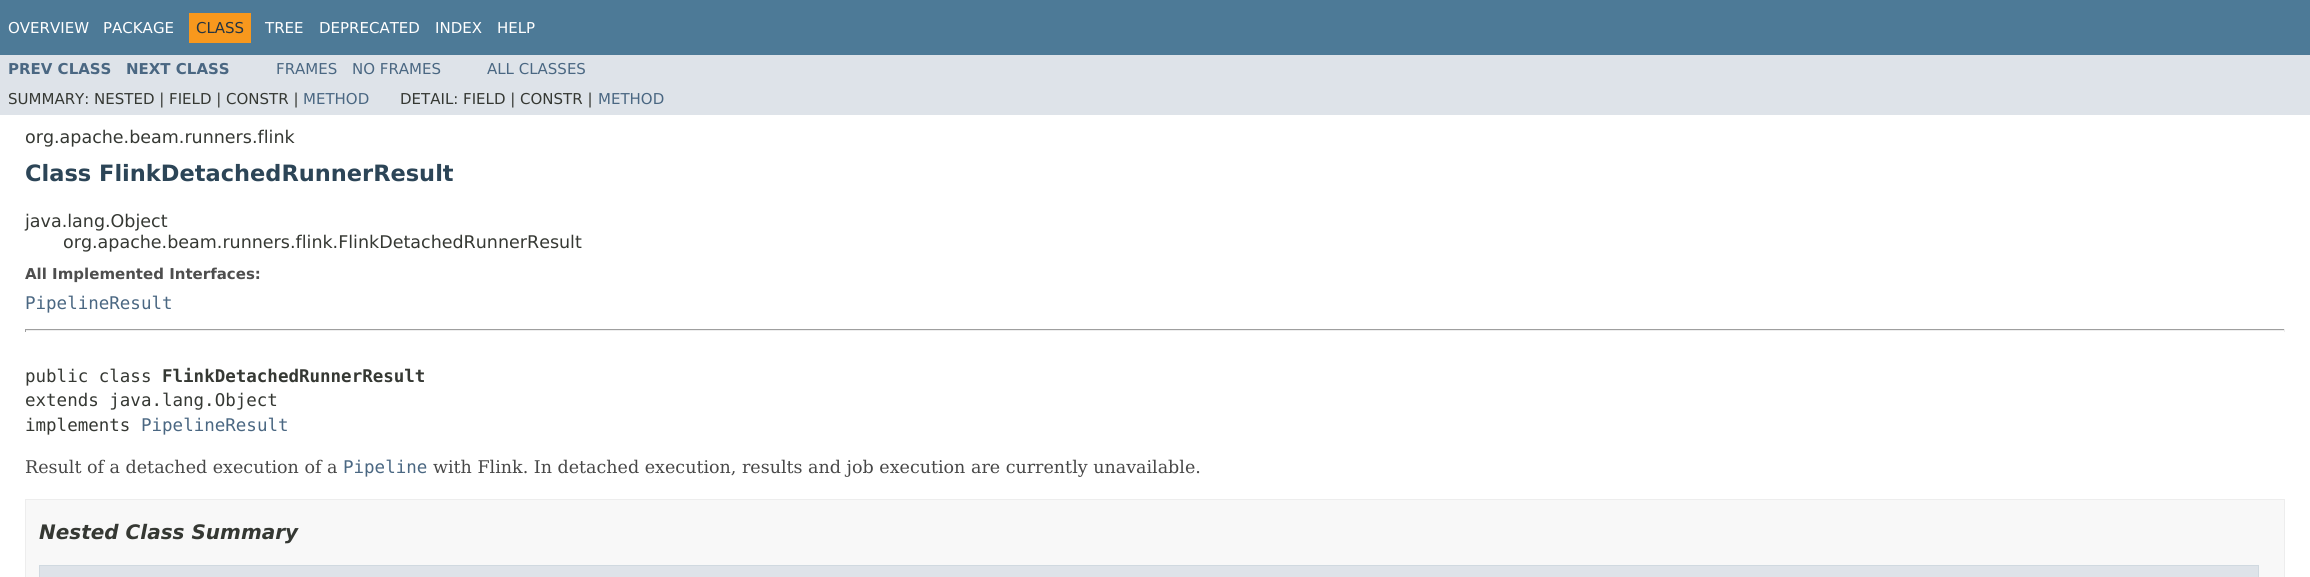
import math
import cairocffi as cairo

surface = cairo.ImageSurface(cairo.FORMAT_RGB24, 2310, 577)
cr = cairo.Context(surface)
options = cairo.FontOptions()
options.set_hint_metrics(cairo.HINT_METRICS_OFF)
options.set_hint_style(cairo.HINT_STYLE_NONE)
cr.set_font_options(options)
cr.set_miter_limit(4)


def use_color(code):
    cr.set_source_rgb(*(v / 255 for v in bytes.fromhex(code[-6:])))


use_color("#ffffff")
cr.paint()
use_color("#4d7a97")
cr.rectangle(0, 0, 2310, 55)
cr.fill()
cr.select_font_face("DejaVu Sans")
cr.set_font_size(15)
use_color("#ffffff")
cr.move_to(8, 33)
cr.show_text("OVERVIEW")
cr.move_to(103, 33)
cr.show_text("PACKAGE")
use_color("#f8981d")
cr.rectangle(189, 13, 62, 30)
cr.fill()
use_color("#253441")
cr.move_to(196, 33)
cr.show_text("CLASS")
use_color("#ffffff")
cr.move_to(265, 33)
cr.show_text("TREE")
cr.move_to(319, 33)
cr.show_text("DEPRECATED")
cr.move_to(435, 33)
cr.show_text("INDEX")
cr.move_to(497, 33)
cr.show_text("HELP")
use_color("#dee3e9")
cr.rectangle(0, 55, 2310, 60)
cr.fill()
cr.select_font_face("DejaVu Sans", cairo.FONT_SLANT_NORMAL, cairo.FONT_WEIGHT_BOLD)
use_color("#4a6782")
cr.move_to(8, 74)
cr.show_text("PREV CLASS")
cr.move_to(126, 74)
cr.show_text("NEXT CLASS")
cr.select_font_face("DejaVu Sans")
cr.move_to(276, 74)
cr.show_text("FRAMES")
cr.move_to(352, 74)
cr.show_text("NO FRAMES")
cr.move_to(487, 74)
cr.show_text("ALL CLASSES")
use_color("#353833")
cr.move_to(8, 104)
cr.show_text("SUMMARY: NESTED | FIELD | CONSTR |")
use_color("#4a6782")
cr.move_to(303, 104)
cr.show_text("METHOD")
use_color("#353833")
cr.move_to(400, 104)
cr.show_text("DETAIL: FIELD | CONSTR |")
use_color("#4a6782")
cr.move_to(598, 104)
cr.show_text("METHOD")
cr.set_font_size(17.5)
use_color("#353833")
cr.move_to(25, 143)
cr.show_text("org.apache.beam.runners.flink")
cr.select_font_face("DejaVu Sans", cairo.FONT_SLANT_NORMAL, cairo.FONT_WEIGHT_BOLD)
cr.set_font_size(22.5)
use_color("#2c4557")
cr.move_to(25, 181)
cr.show_text("Class FlinkDetachedRunnerResult")
cr.select_font_face("DejaVu Sans")
cr.set_font_size(17.5)
use_color("#353833")
cr.move_to(25, 227)
cr.show_text("java.lang.Object")
cr.move_to(63, 248)
cr.show_text("org.apache.beam.runners.flink.FlinkDetachedRunnerResult")
cr.select_font_face("DejaVu Sans", cairo.FONT_SLANT_NORMAL, cairo.FONT_WEIGHT_BOLD)
cr.set_font_size(15)
use_color("#4e4e4e")
cr.move_to(25, 279)
cr.show_text("All Implemented Interfaces:")
cr.select_font_face("DejaVu Sans Mono")
cr.set_font_size(17.5)
use_color("#4a6782")
cr.move_to(25, 309)
cr.show_text("PipelineResult")
use_color("#9f9f9f")
cr.rectangle(25, 329, 2260, 1)
cr.fill()
use_color("#eeeeee")
cr.rectangle(2284, 329, 1, 3)
cr.fill()
cr.rectangle(25, 330, 2260, 1)
cr.fill()
use_color("#9f9f9f")
cr.rectangle(25, 329, 1, 3)
cr.fill()
use_color("#353833")
cr.move_to(25, 382)
cr.show_text("public class")
cr.select_font_face("DejaVu Sans Mono", cairo.FONT_SLANT_NORMAL, cairo.FONT_WEIGHT_BOLD)
cr.move_to(162, 382)
cr.show_text("FlinkDetachedRunnerResult")
cr.select_font_face("DejaVu Sans Mono")
cr.move_to(25, 406)
cr.show_text("extends java.lang.Object")
cr.move_to(25, 431)
cr.show_text("implements")
use_color("#4a6782")
cr.move_to(141, 431)
cr.show_text("PipelineResult")
cr.select_font_face("DejaVu Serif")
use_color("#474747")
cr.move_to(25, 473)
cr.show_text("Result of a detached execution of a")
cr.select_font_face("DejaVu Sans Mono")
use_color("#4a6782")
cr.move_to(343, 473)
cr.show_text("Pipeline")
cr.select_font_face("DejaVu Serif")
use_color("#474747")
cr.move_to(433, 473)
cr.show_text("with Flink. In detached execution, results and job execution are currently unavailable.")
use_color("#f8f8f8")
cr.rectangle(25.5, 499.5, 2259, 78)
cr.fill_preserve()
use_color("#ededed")
cr.set_line_width(1)
cr.stroke()
cr.select_font_face("DejaVu Sans", cairo.FONT_SLANT_ITALIC, cairo.FONT_WEIGHT_BOLD)
cr.set_font_size(20)
use_color("#353833")
cr.move_to(39, 539)
cr.show_text("Nested Class Summary")
use_color("#dee3e9")
cr.rectangle(39.5, 565.5, 2219, 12)
cr.fill_preserve()
use_color("#d0d9e0")
cr.stroke()
surface.write_to_png("result.png")
